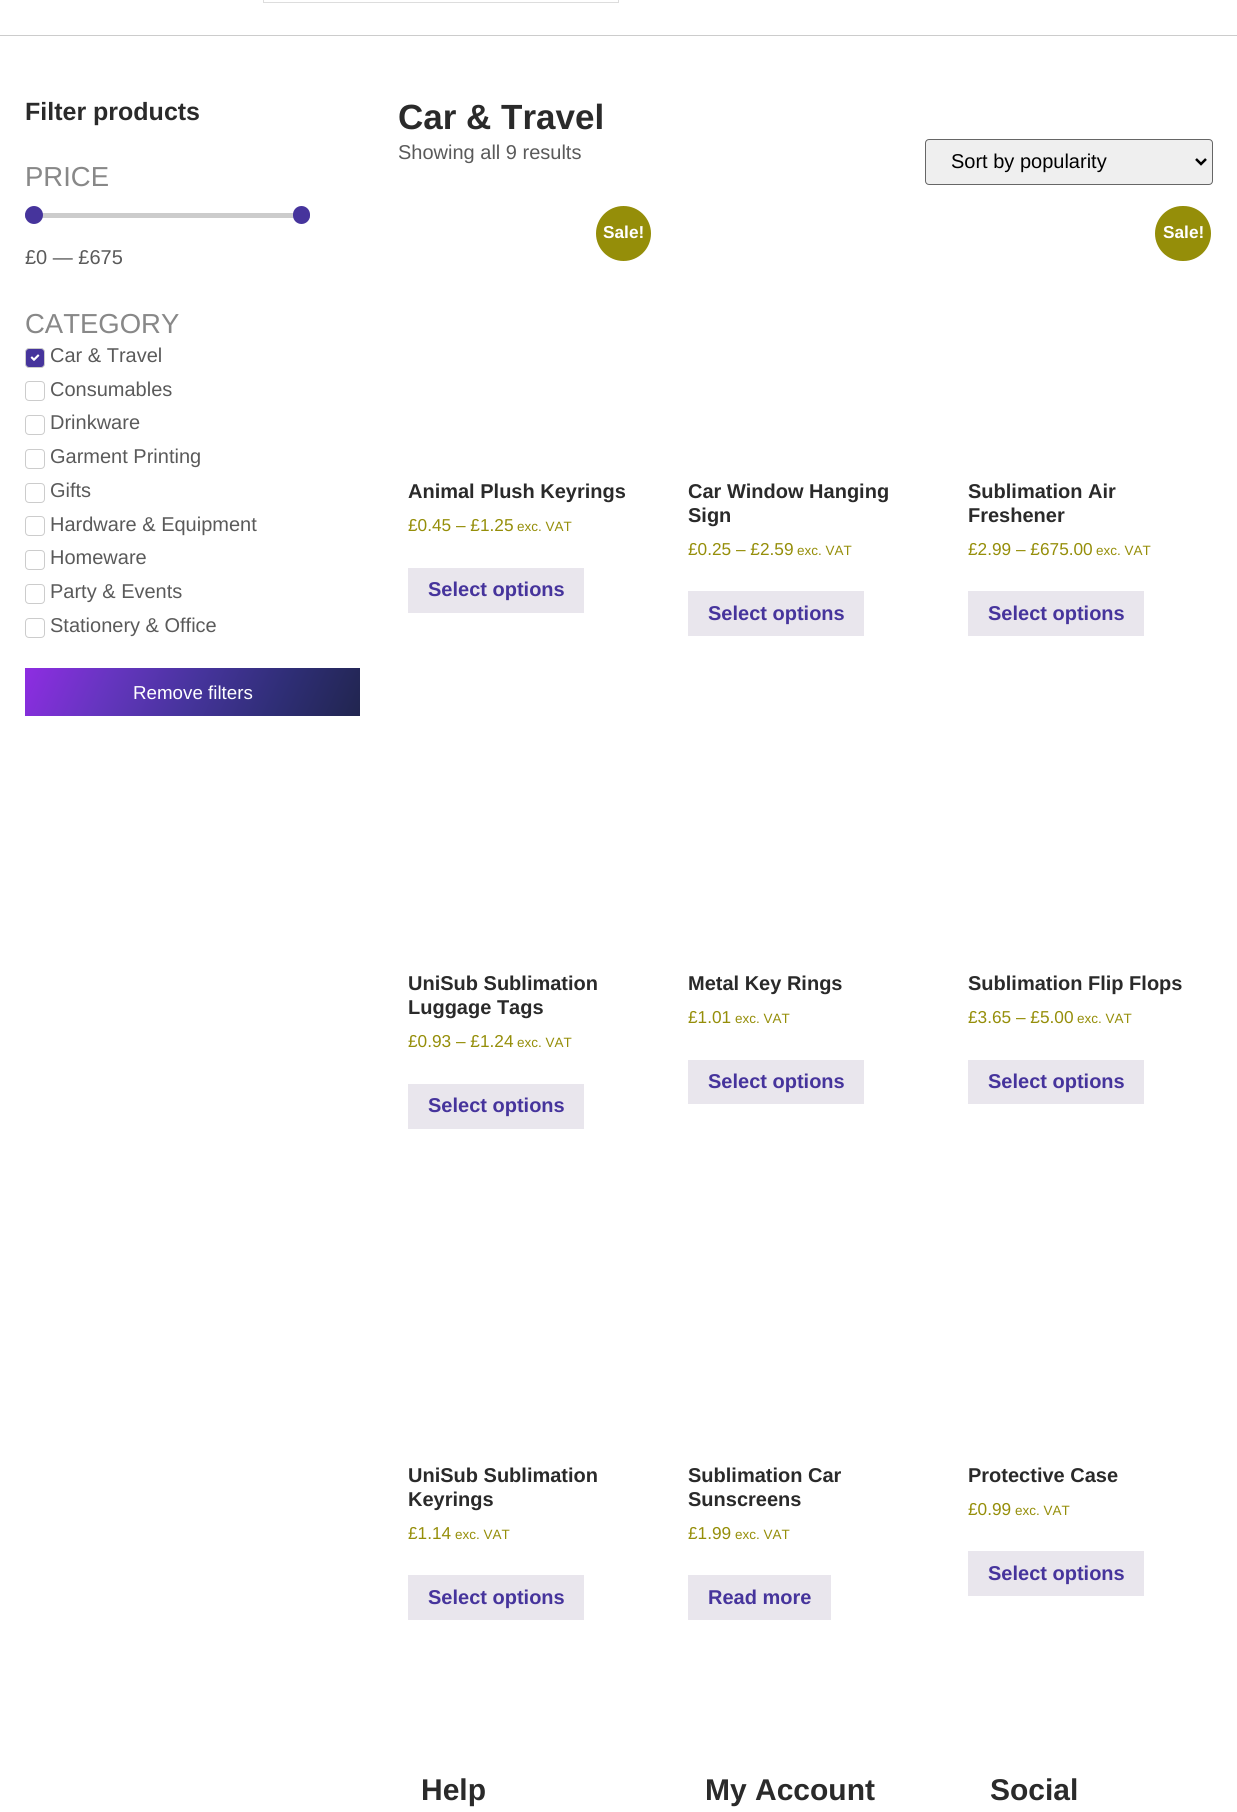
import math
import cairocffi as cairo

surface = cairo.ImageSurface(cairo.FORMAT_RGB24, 1237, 1812)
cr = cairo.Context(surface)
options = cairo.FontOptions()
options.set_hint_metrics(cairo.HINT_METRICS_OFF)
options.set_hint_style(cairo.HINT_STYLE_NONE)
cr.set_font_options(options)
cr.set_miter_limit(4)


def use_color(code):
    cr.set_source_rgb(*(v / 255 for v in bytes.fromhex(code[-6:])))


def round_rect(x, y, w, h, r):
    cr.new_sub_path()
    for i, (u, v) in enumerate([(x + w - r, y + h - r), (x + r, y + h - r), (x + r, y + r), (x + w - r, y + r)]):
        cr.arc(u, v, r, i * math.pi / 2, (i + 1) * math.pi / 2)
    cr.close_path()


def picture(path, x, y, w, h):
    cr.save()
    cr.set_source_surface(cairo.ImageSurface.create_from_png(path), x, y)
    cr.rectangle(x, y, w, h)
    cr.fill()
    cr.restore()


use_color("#ffffff")
cr.paint()
use_color("#cccccc")
cr.rectangle(0, 35, 1237, 1)
cr.fill()
cr.rectangle(263.5, -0.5, 355, 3)
use_color("#dddddd")
cr.set_line_width(1)
cr.stroke()
cr.select_font_face("Liberation Sans", cairo.FONT_SLANT_NORMAL, cairo.FONT_WEIGHT_BOLD)
cr.set_font_size(25)
use_color("#2a2a2a")
cr.move_to(25, 120)
cr.show_text("Filter products")
cr.select_font_face("Liberation Sans")
cr.set_font_size(27.5)
use_color("#888888")
cr.move_to(25, 186)
cr.show_text("PRICE")
use_color("#cccccc")
cr.rectangle(25, 213, 285, 5)
cr.fill()
use_color("#46349c")
cr.arc(34, 215, 9, 0, 2 * math.pi)
cr.fill()
round_rect(293, 206, 17, 18, 8.5)
cr.fill()
cr.set_font_size(20)
use_color("#5a5a5a")
cr.move_to(25, 264)
cr.show_text("£0 — £675")
cr.set_font_size(27.5)
use_color("#888888")
cr.move_to(25, 333)
cr.show_text("CATEGORY")
use_color("#46349c")
round_rect(25.5, 348.5, 19, 19, 3.5)
cr.fill_preserve()
use_color("#cccccc")
cr.stroke()
picture("img1.png", 30, 354, 10, 7)
cr.set_font_size(20)
use_color("#5a5a5a")
cr.move_to(50, 362)
cr.show_text("Car & Travel")
round_rect(25.5, 381.5, 19, 19, 3.5)
use_color("#cccccc")
cr.stroke()
use_color("#5a5a5a")
cr.move_to(50, 396)
cr.show_text("Consumables")
round_rect(25.5, 415.5, 19, 19, 3.5)
use_color("#cccccc")
cr.stroke()
use_color("#5a5a5a")
cr.move_to(50, 429)
cr.show_text("Drinkware")
round_rect(25.5, 449.5, 19, 19, 3.5)
use_color("#cccccc")
cr.stroke()
use_color("#5a5a5a")
cr.move_to(50, 463)
cr.show_text("Garment Printing")
round_rect(25.5, 483.5, 19, 19, 3.5)
use_color("#cccccc")
cr.stroke()
use_color("#5a5a5a")
cr.move_to(50, 497)
cr.show_text("Gifts")
round_rect(25.5, 516.5, 19, 19, 3.5)
use_color("#cccccc")
cr.stroke()
use_color("#5a5a5a")
cr.move_to(50, 531)
cr.show_text("Hardware & Equipment")
round_rect(25.5, 550.5, 19, 19, 3.5)
use_color("#cccccc")
cr.stroke()
use_color("#5a5a5a")
cr.move_to(50, 564)
cr.show_text("Homeware")
round_rect(25.5, 584.5, 19, 19, 3.5)
use_color("#cccccc")
cr.stroke()
use_color("#5a5a5a")
cr.move_to(50, 598)
cr.show_text("Party & Events")
round_rect(25.5, 618.5, 19, 19, 3.5)
use_color("#cccccc")
cr.stroke()
use_color("#5a5a5a")
cr.move_to(50, 632)
cr.show_text("Stationery & Office")
gradient = cairo.LinearGradient(46, 623, 339, 760)
gradient.add_color_stop_rgba(0, 0.557, 0.176, 0.886, 1)
gradient.add_color_stop_rgba(0.25, 0.4, 0.208, 0.753, 1)
gradient.add_color_stop_rgba(0.5, 0.275, 0.204, 0.612, 1)
gradient.add_color_stop_rgba(0.75, 0.184, 0.18, 0.463, 1)
gradient.add_color_stop_rgba(1, 0.129, 0.145, 0.31, 1)
cr.set_source(gradient)
cr.rectangle(25, 668, 335, 48)
cr.fill()
cr.set_font_size(18.75)
use_color("#ffffff")
cr.move_to(133, 699)
cr.show_text("Remove filters")
cr.select_font_face("Liberation Sans", cairo.FONT_SLANT_NORMAL, cairo.FONT_WEIGHT_BOLD)
cr.set_font_size(35)
use_color("#2a2a2a")
cr.move_to(398, 129)
cr.show_text("Car & Travel")
cr.select_font_face("Liberation Sans")
cr.set_font_size(20)
use_color("#5a5a5a")
cr.move_to(398, 159)
cr.show_text("Showing all 9 results")
use_color("#efefef")
round_rect(925.5, 139.5, 287, 45, 3.5)
cr.fill_preserve()
use_color("#666666")
cr.stroke()
cr.new_path()
cr.move_to(1196, 159)
cr.line_to(1201, 164)
cr.line_to(1206, 159)
use_color("#000000")
cr.set_line_width(2.5)
cr.stroke()
cr.move_to(951, 168)
cr.show_text("Sort by popularity")
use_color("#958e09")
cr.new_path()
cr.arc(623.5, 233.5, 27.5, 0, 2 * math.pi)
cr.fill()
cr.select_font_face("Liberation Sans", cairo.FONT_SLANT_NORMAL, cairo.FONT_WEIGHT_BOLD)
cr.set_font_size(17.25)
use_color("#ffffff")
cr.move_to(603, 238)
cr.show_text("Sale!")
cr.set_font_size(20)
use_color("#2a2a2a")
cr.move_to(408, 498)
cr.show_text("Animal Plush Keyrings")
cr.select_font_face("Liberation Sans")
cr.set_font_size(17.25)
use_color("#958e09")
cr.move_to(408, 531)
cr.show_text("£0.45 – £1.25")
cr.set_font_size(13.5)
cr.move_to(517, 531)
cr.show_text("exc. VAT")
use_color("#e9e6ed")
cr.rectangle(408, 568, 176, 45)
cr.fill()
cr.select_font_face("Liberation Sans", cairo.FONT_SLANT_NORMAL, cairo.FONT_WEIGHT_BOLD)
cr.set_font_size(20)
use_color("#46349c")
cr.move_to(428, 596)
cr.show_text("Select options")
use_color("#2a2a2a")
cr.move_to(688, 498)
cr.show_text("Car Window Hanging")
cr.move_to(688, 522)
cr.show_text("Sign")
cr.select_font_face("Liberation Sans")
cr.set_font_size(17.25)
use_color("#958e09")
cr.move_to(688, 555)
cr.show_text("£0.25 – £2.59")
cr.set_font_size(13.5)
cr.move_to(797, 555)
cr.show_text("exc. VAT")
use_color("#e9e6ed")
cr.rectangle(688, 591, 176, 45)
cr.fill()
cr.select_font_face("Liberation Sans", cairo.FONT_SLANT_NORMAL, cairo.FONT_WEIGHT_BOLD)
cr.set_font_size(20)
use_color("#46349c")
cr.move_to(708, 620)
cr.show_text("Select options")
use_color("#958e09")
round_rect(1155, 206, 56, 55, 27.5)
cr.fill()
cr.set_font_size(17.25)
use_color("#ffffff")
cr.move_to(1163, 238)
cr.show_text("Sale!")
cr.set_font_size(20)
use_color("#2a2a2a")
cr.move_to(968, 498)
cr.show_text("Sublimation Air")
cr.move_to(968, 522)
cr.show_text("Freshener")
cr.select_font_face("Liberation Sans")
cr.set_font_size(17.25)
use_color("#958e09")
cr.move_to(968, 555)
cr.show_text("£2.99 – £675.00")
cr.set_font_size(13.5)
cr.move_to(1096, 555)
cr.show_text("exc. VAT")
use_color("#e9e6ed")
cr.rectangle(968, 591, 176, 45)
cr.fill()
cr.select_font_face("Liberation Sans", cairo.FONT_SLANT_NORMAL, cairo.FONT_WEIGHT_BOLD)
cr.set_font_size(20)
use_color("#46349c")
cr.move_to(988, 620)
cr.show_text("Select options")
use_color("#2a2a2a")
cr.move_to(408, 990)
cr.show_text("UniSub Sublimation")
cr.move_to(408, 1014)
cr.show_text("Luggage Tags")
cr.select_font_face("Liberation Sans")
cr.set_font_size(17.25)
use_color("#958e09")
cr.move_to(408, 1047)
cr.show_text("£0.93 – £1.24")
cr.set_font_size(13.5)
cr.move_to(517, 1047)
cr.show_text("exc. VAT")
use_color("#e9e6ed")
cr.rectangle(408, 1084, 176, 45)
cr.fill()
cr.select_font_face("Liberation Sans", cairo.FONT_SLANT_NORMAL, cairo.FONT_WEIGHT_BOLD)
cr.set_font_size(20)
use_color("#46349c")
cr.move_to(428, 1112)
cr.show_text("Select options")
use_color("#2a2a2a")
cr.move_to(688, 990)
cr.show_text("Metal Key Rings")
cr.select_font_face("Liberation Sans")
cr.set_font_size(17.25)
use_color("#958e09")
cr.move_to(688, 1023)
cr.show_text("£1.01")
cr.set_font_size(13.5)
cr.move_to(735, 1023)
cr.show_text("exc. VAT")
use_color("#e9e6ed")
cr.rectangle(688, 1060, 176, 44)
cr.fill()
cr.select_font_face("Liberation Sans", cairo.FONT_SLANT_NORMAL, cairo.FONT_WEIGHT_BOLD)
cr.set_font_size(20)
use_color("#46349c")
cr.move_to(708, 1088)
cr.show_text("Select options")
use_color("#2a2a2a")
cr.move_to(968, 990)
cr.show_text("Sublimation Flip Flops")
cr.select_font_face("Liberation Sans")
cr.set_font_size(17.25)
use_color("#958e09")
cr.move_to(968, 1023)
cr.show_text("£3.65 – £5.00")
cr.set_font_size(13.5)
cr.move_to(1077, 1023)
cr.show_text("exc. VAT")
use_color("#e9e6ed")
cr.rectangle(968, 1060, 176, 44)
cr.fill()
cr.select_font_face("Liberation Sans", cairo.FONT_SLANT_NORMAL, cairo.FONT_WEIGHT_BOLD)
cr.set_font_size(20)
use_color("#46349c")
cr.move_to(988, 1088)
cr.show_text("Select options")
use_color("#2a2a2a")
cr.move_to(408, 1482)
cr.show_text("UniSub Sublimation")
cr.move_to(408, 1506)
cr.show_text("Keyrings")
cr.select_font_face("Liberation Sans")
cr.set_font_size(17.25)
use_color("#958e09")
cr.move_to(408, 1539)
cr.show_text("£1.14")
cr.set_font_size(13.5)
cr.move_to(455, 1539)
cr.show_text("exc. VAT")
use_color("#e9e6ed")
cr.rectangle(408, 1575, 176, 45)
cr.fill()
cr.select_font_face("Liberation Sans", cairo.FONT_SLANT_NORMAL, cairo.FONT_WEIGHT_BOLD)
cr.set_font_size(20)
use_color("#46349c")
cr.move_to(428, 1604)
cr.show_text("Select options")
use_color("#2a2a2a")
cr.move_to(688, 1482)
cr.show_text("Sublimation Car")
cr.move_to(688, 1506)
cr.show_text("Sunscreens")
cr.select_font_face("Liberation Sans")
cr.set_font_size(17.25)
use_color("#958e09")
cr.move_to(688, 1539)
cr.show_text("£1.99")
cr.set_font_size(13.5)
cr.move_to(735, 1539)
cr.show_text("exc. VAT")
use_color("#e9e6ed")
cr.rectangle(688, 1575, 143, 45)
cr.fill()
cr.select_font_face("Liberation Sans", cairo.FONT_SLANT_NORMAL, cairo.FONT_WEIGHT_BOLD)
cr.set_font_size(20)
use_color("#46349c")
cr.move_to(708, 1604)
cr.show_text("Read more")
use_color("#2a2a2a")
cr.move_to(968, 1482)
cr.show_text("Protective Case")
cr.select_font_face("Liberation Sans")
cr.set_font_size(17.25)
use_color("#958e09")
cr.move_to(968, 1515)
cr.show_text("£0.99")
cr.set_font_size(13.5)
cr.move_to(1015, 1515)
cr.show_text("exc. VAT")
use_color("#e9e6ed")
cr.rectangle(968, 1551, 176, 45)
cr.fill()
cr.select_font_face("Liberation Sans", cairo.FONT_SLANT_NORMAL, cairo.FONT_WEIGHT_BOLD)
cr.set_font_size(20)
use_color("#46349c")
cr.move_to(988, 1580)
cr.show_text("Select options")
cr.set_font_size(30)
use_color("#2a2a2a")
cr.move_to(421, 1800)
cr.show_text("Help")
cr.move_to(705, 1800)
cr.show_text("My Account")
cr.move_to(990, 1800)
cr.show_text("Social")
surface.write_to_png("result.png")
